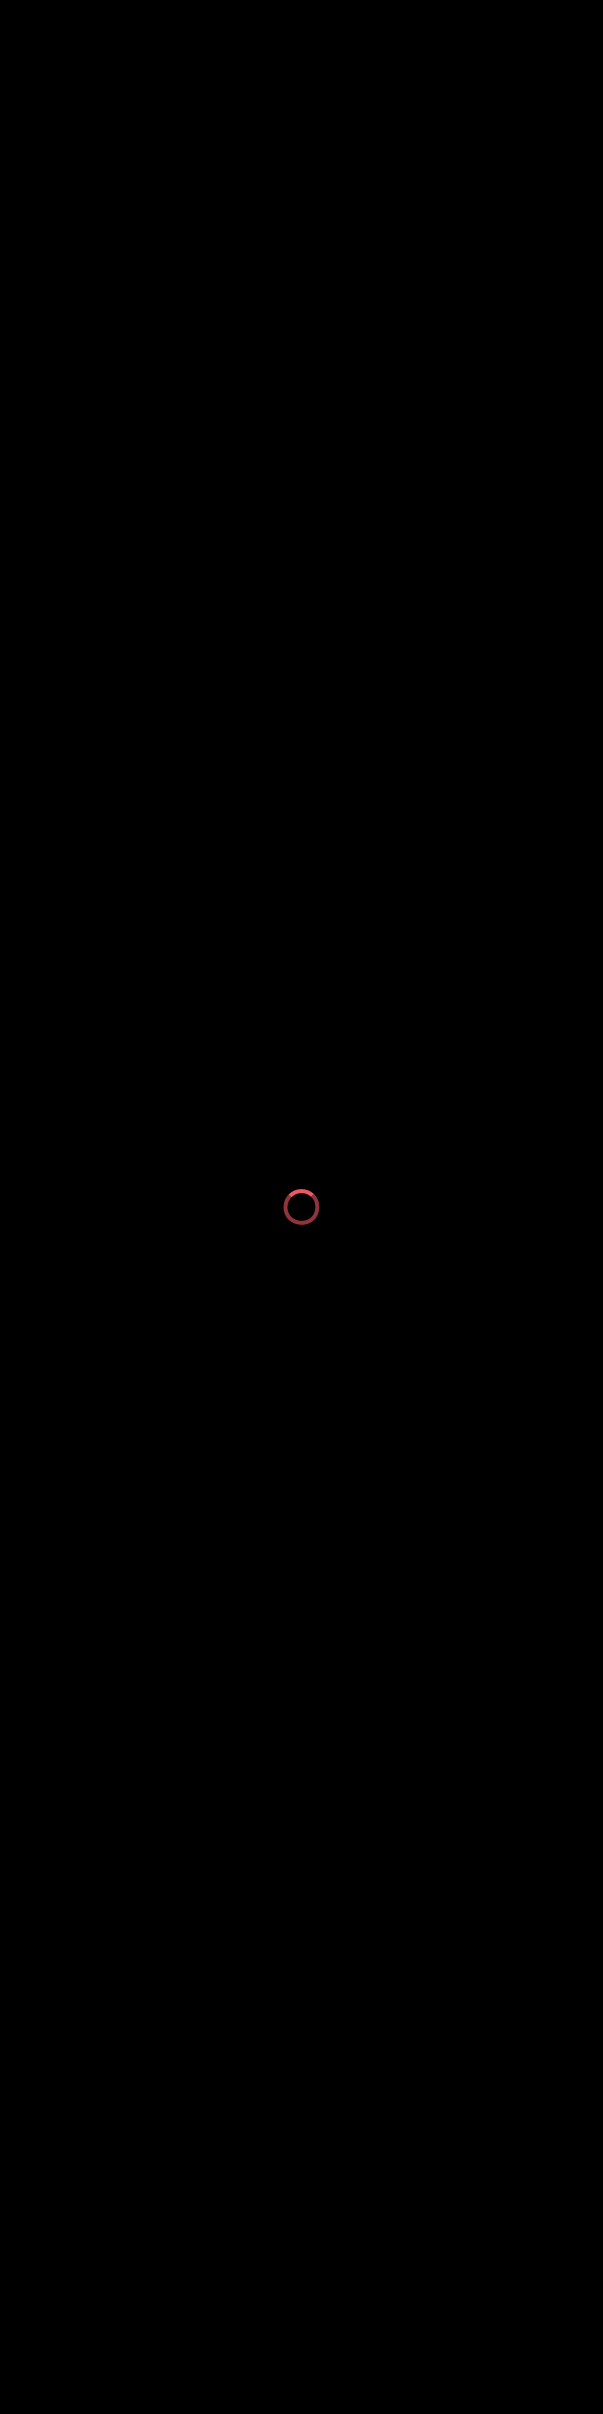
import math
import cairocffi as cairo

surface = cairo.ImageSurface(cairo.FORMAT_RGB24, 603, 2414)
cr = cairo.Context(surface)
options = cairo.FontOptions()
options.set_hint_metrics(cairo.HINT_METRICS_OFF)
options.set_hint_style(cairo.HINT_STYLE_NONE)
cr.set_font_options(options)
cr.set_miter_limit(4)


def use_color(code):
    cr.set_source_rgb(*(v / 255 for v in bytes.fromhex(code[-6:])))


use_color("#000000")
cr.paint()
cr.new_path()
cr.move_to(290, 1196)
cr.curve_to(296, 1189.5, 306.5, 1189.5, 312.5, 1195.5)
use_color("#ef5763")
cr.set_line_width(4)
cr.stroke()
cr.new_path()
cr.move_to(312.5, 1195.5)
cr.curve_to(316.5, 1199, 318, 1204.5, 317, 1210)
cr.curve_to(314, 1228.5, 286, 1226.5, 285.5, 1207.5)
cr.curve_to(285.5, 1203, 287, 1199, 290, 1196)
cr.set_source_rgba(0.937, 0.341, 0.388, 0.6)
cr.stroke()
surface.write_to_png("result.png")
